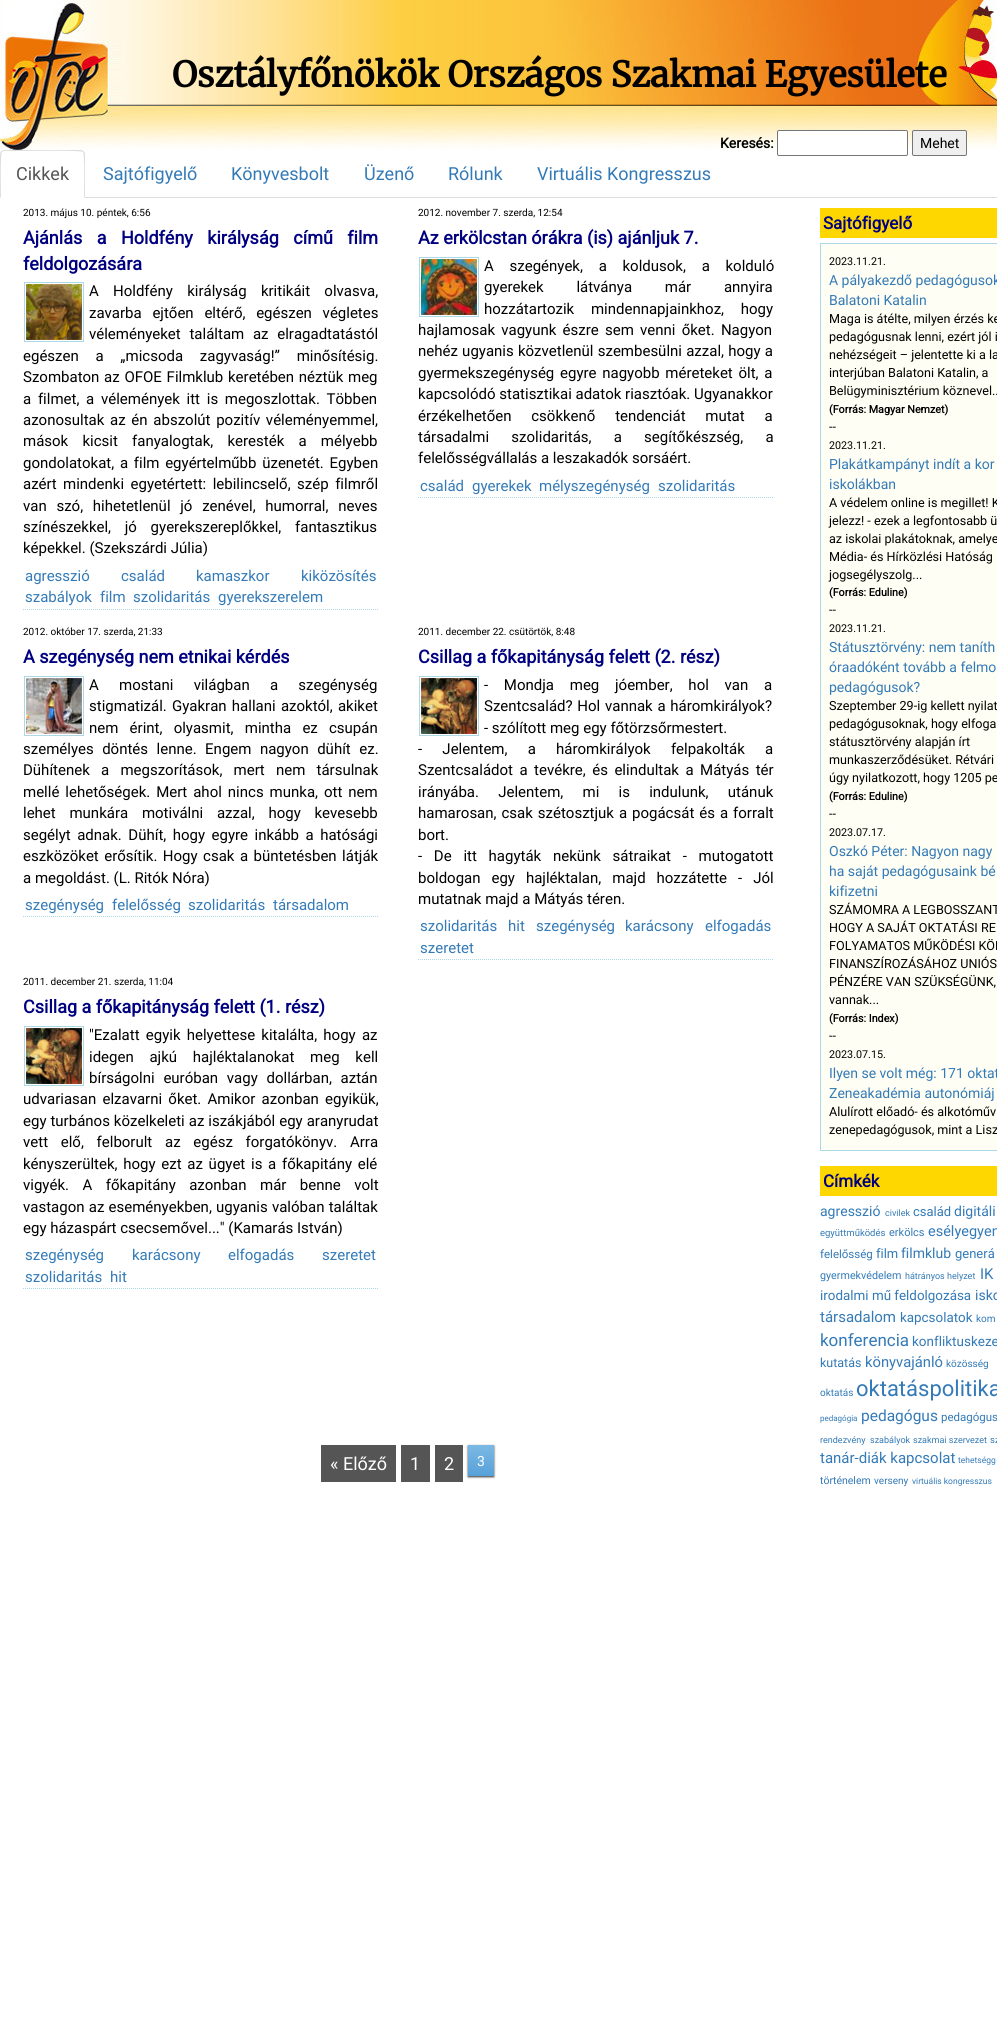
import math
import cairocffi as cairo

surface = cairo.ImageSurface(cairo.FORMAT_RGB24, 997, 2044)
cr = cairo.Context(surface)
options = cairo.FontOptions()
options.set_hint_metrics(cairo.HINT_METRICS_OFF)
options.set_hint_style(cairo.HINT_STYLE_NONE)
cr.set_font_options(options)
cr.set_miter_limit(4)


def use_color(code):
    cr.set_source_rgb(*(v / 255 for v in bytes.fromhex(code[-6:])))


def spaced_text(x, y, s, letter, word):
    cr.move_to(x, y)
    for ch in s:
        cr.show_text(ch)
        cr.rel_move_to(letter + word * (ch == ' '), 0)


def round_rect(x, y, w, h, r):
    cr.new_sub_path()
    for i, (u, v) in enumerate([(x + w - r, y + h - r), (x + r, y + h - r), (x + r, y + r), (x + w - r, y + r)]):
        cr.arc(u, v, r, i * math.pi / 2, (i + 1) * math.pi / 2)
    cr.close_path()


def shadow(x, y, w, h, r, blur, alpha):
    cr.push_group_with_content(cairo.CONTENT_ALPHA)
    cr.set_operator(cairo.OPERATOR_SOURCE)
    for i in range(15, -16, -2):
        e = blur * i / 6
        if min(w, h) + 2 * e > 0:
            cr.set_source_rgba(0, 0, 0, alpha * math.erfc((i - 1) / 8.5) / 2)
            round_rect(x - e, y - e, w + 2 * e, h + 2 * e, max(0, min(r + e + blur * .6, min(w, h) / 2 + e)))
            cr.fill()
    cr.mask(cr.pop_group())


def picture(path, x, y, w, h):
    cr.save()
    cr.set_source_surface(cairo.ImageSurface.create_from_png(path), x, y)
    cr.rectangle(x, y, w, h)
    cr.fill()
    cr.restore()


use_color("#ffffff")
cr.paint()
picture("img1.png", 0, 0, 112, 150)
picture("img2.png", 112, 0, 10, 150)
picture("img3.png", 122, 0, 875, 150)
cr.select_font_face("Merriweather", cairo.FONT_SLANT_NORMAL, cairo.FONT_WEIGHT_BOLD)
cr.set_font_size(35)
use_color("#000000")
cr.move_to(172, 87)
cr.show_text("Osztályfőnökök Országos Szakmai Egyesülete")
cr.select_font_face("Roboto", cairo.FONT_SLANT_NORMAL, cairo.FONT_WEIGHT_BOLD)
cr.set_font_size(14)
cr.move_to(720, 148)
cr.show_text("Keresés:")
use_color("#ffffff")
round_rect(777.5, 130.5, 130, 25, 1.5)
cr.fill_preserve()
use_color("#767676")
cr.set_line_width(1)
cr.stroke()
use_color("#efefef")
round_rect(912.5, 130.5, 54, 25, 1.5)
cr.fill_preserve()
use_color("#767676")
cr.stroke()
cr.select_font_face("Roboto")
use_color("#000000")
cr.move_to(920, 148)
cr.show_text("Mehet")
use_color("#dddddd")
cr.rectangle(85, 197, 912, 1)
cr.fill()
cr.new_path()
cr.move_to(4, 150)
cr.line_to(1, 151)
cr.line_to(2, 152)
cr.line_to(4, 151)
cr.line_to(17, 151)
cr.curve_to(24, 151, 81, 150, 83, 152)
cr.line_to(84, 151)
cr.line_to(81, 150)
cr.close_path()
cr.fill()
cr.new_path()
cr.move_to(85, 198)
cr.line_to(85, 154)
cr.curve_to(85, 153, 84, 152, 84, 151)
cr.line_to(83, 152)
cr.curve_to(85, 154, 84, 192, 84, 197)
cr.close_path()
cr.fill()
cr.new_path()
cr.move_to(0, 198)
cr.line_to(1, 197)
cr.curve_to(1, 192, 0, 154, 2, 152)
cr.line_to(1, 151)
cr.line_to(0, 154)
cr.close_path()
cr.fill()
cr.set_font_size(18)
use_color("#555555")
cr.move_to(16, 180)
cr.show_text("Cikkek")
use_color("#337ab7")
cr.move_to(103, 180)
cr.show_text("Sajtófigyelő")
cr.move_to(231, 180)
cr.show_text("Könyvesbolt")
cr.move_to(364, 180)
cr.show_text("Üzenő")
cr.move_to(448, 180)
cr.show_text("Rólunk")
cr.move_to(537, 180)
cr.show_text("Virtuális Kongresszus")
cr.new_path()
cr.move_to(23, 609.5)
cr.line_to(378, 609.5)
use_color("#add8e6")
cr.set_dash([1, 1])
cr.stroke()
cr.set_font_size(10)
use_color("#000000")
cr.move_to(23, 216)
cr.show_text("2013. május 10. péntek, 6:56")
cr.select_font_face("Roboto", cairo.FONT_SLANT_NORMAL, cairo.FONT_WEIGHT_BOLD)
cr.set_font_size(18)
use_color("#000080")
spaced_text(23, 244, "Ajánlás a Holdfény királyság című film", 0, 10)
cr.move_to(23, 270)
cr.show_text("feldolgozására")
cr.rectangle(24.5, 282.5, 59, 59)
use_color("#add8e6")
cr.set_dash([])
cr.stroke()
picture("img4.png", 26, 284, 56, 56)
cr.select_font_face("Roboto")
cr.set_font_size(15)
use_color("#000000")
spaced_text(89, 296, "A Holdfény királyság kritikáit olvasva,", 0, 10.5)
spaced_text(89, 318, "zavarba ejtően eltérő, egészen végletes", 0, 7)
spaced_text(89, 339, "véleményeket találtam az elragadtatástól", 0, 5)
spaced_text(23, 361, "egészen a „micsoda zagyvaság!” minősítésig.", 0, 13)
spaced_text(23, 382, "Szombaton az OFOE Filmklub", 0, 1)
spaced_text(228, 382, "keretében néztük", 0, 1)
cr.move_to(348, 382)
cr.show_text("meg")
spaced_text(23, 404, "a filmet, a vélemények itt is megoszlottak. Többen", 0, 3)
spaced_text(23, 425, "azonosultak az én abszolút pozitív véleményemmel,", 0, 2)
spaced_text(23, 446, "mások kicsit fanyalogtak, keresték a mélyebb", 0, 10.5)
spaced_text(23, 468, "gondolatokat, a film egyértelműbb üzenetét. Egyben", 0, 2)
spaced_text(23, 489, "azért mindenki egyetértett: lebilincselő, szép filmről", 0, 2.75)
spaced_text(23, 511, "van szó, hihetetlenül jó zenével, humorral, neves", 0, 6)
spaced_text(23, 532, "színészekkel, jó gyerekszereplőkkel, fantasztikus", 0, 10)
cr.move_to(23, 553)
cr.show_text("képekkel. (Szekszárdi Júlia)")
use_color("#337ab7")
cr.move_to(25, 581)
cr.show_text("agresszió")
cr.move_to(121, 581)
cr.show_text("család")
cr.move_to(196, 581)
cr.show_text("kamaszkor")
cr.move_to(301, 581)
cr.show_text("kiközösítés")
cr.move_to(25, 602)
cr.show_text("szabályok")
cr.move_to(100, 602)
cr.show_text("film")
cr.move_to(133, 602)
cr.show_text("szolidaritás")
cr.move_to(218, 602)
cr.show_text("gyerekszerelem")
cr.new_path()
cr.move_to(418, 497.5)
cr.line_to(773, 497.5)
use_color("#add8e6")
cr.set_dash([1, 1])
cr.stroke()
cr.set_font_size(10)
use_color("#000000")
cr.move_to(418, 216)
cr.show_text("2012. november 7. szerda, 12:54")
cr.select_font_face("Roboto", cairo.FONT_SLANT_NORMAL, cairo.FONT_WEIGHT_BOLD)
cr.set_font_size(18)
use_color("#000080")
cr.move_to(418, 244)
cr.show_text("Az erkölcstan órákra (is) ajánljuk 7.")
cr.rectangle(419.5, 257.5, 59, 59)
use_color("#add8e6")
cr.set_dash([])
cr.stroke()
picture("img5.png", 421, 259, 56, 56)
cr.select_font_face("Roboto")
cr.set_font_size(15)
use_color("#000000")
spaced_text(484, 271, "A szegények, a koldusok, a kolduló", 0, 12)
spaced_text(484, 292, "gyerekek látványa már annyira", 0, 29)
spaced_text(484, 314, "hozzátartozik mindennapjainkhoz, hogy", 0, 13)
spaced_text(418, 335, "hajlamosak vagyunk észre sem venni őket. Nagyon", 0, 2.5)
spaced_text(418, 356, "nehéz ugyanis közvetlenül szembesülni azzal, hogy a", 0, 0.5)
spaced_text(418, 378, "gyermekszegénység egyre nagyobb méreteket ölt, a", 0, 2)
cr.move_to(418, 399)
cr.show_text("kapcsolódó statisztikai adatok riasztóak. Ugyanakkor")
spaced_text(418, 421, "érzékelhetően csökkenő tendenciát mutat a", 0, 16)
spaced_text(418, 442, "társadalmi szolidaritás, a segítőkészség, a", 0, 18.5)
cr.move_to(418, 463)
cr.show_text("felelősségvállalás a leszakadók sorsáért.")
use_color("#337ab7")
cr.move_to(420, 491)
cr.show_text("család")
cr.move_to(472, 491)
cr.show_text("gyerekek")
cr.move_to(539, 491)
cr.show_text("mélyszegénység")
cr.move_to(658, 491)
cr.show_text("szolidaritás")
cr.new_path()
cr.move_to(23, 916.5)
cr.line_to(378, 916.5)
use_color("#add8e6")
cr.set_dash([1, 1])
cr.stroke()
cr.set_font_size(10)
use_color("#000000")
cr.move_to(23, 635)
cr.show_text("2012. október 17. szerda, 21:33")
cr.select_font_face("Roboto", cairo.FONT_SLANT_NORMAL, cairo.FONT_WEIGHT_BOLD)
cr.set_font_size(18)
use_color("#000080")
cr.move_to(23, 663)
cr.show_text("A szegénység nem etnikai kérdés")
cr.rectangle(24.5, 676.5, 59, 59)
use_color("#add8e6")
cr.set_dash([])
cr.stroke()
picture("img6.png", 26, 678, 56, 56)
cr.select_font_face("Roboto")
cr.set_font_size(15)
use_color("#000000")
spaced_text(89, 690, "A mostani világban a szegénység", 0, 16.5)
spaced_text(89, 711, "stigmatizál. Gyakran hallani azoktól, akiket", 0, 1.5)
spaced_text(89, 733, "nem érint, olyasmit, mintha ez csupán", 0, 7.5)
spaced_text(23, 754, "személyes döntés lenne. Engem nagyon dühít ez.", 0, 4.75)
spaced_text(23, 775, "Dühítenek a megszorítások, mert nem társulnak", 0, 7.5)
spaced_text(23, 797, "mellé lehetőségek. Mert ahol nincs munka, ott nem", 0, 2.25)
spaced_text(23, 818, "lehet munkára motiválni azzal, hogy kevesebb", 0, 10)
spaced_text(23, 840, "segélyt adnak. Dühít, hogy egyre inkább a hatósági", 0, 2.75)
spaced_text(23, 861, "eszközöket erősítik. Hogy csak a büntetésben látják", 0, 1.75)
cr.move_to(23, 883)
cr.show_text("a megoldást. (L. Ritók Nóra)")
use_color("#337ab7")
cr.move_to(25, 910)
cr.show_text("szegénység")
cr.move_to(112, 910)
cr.show_text("felelősség")
cr.move_to(188, 910)
cr.show_text("szolidaritás")
cr.move_to(273, 910)
cr.show_text("társadalom")
cr.new_path()
cr.move_to(418, 959.5)
cr.line_to(773, 959.5)
use_color("#add8e6")
cr.set_dash([1, 1])
cr.stroke()
cr.set_font_size(10)
use_color("#000000")
cr.move_to(418, 635)
cr.show_text("2011. december 22. csütörtök, 8:48")
cr.select_font_face("Roboto", cairo.FONT_SLANT_NORMAL, cairo.FONT_WEIGHT_BOLD)
cr.set_font_size(18)
use_color("#000080")
cr.move_to(418, 663)
cr.show_text("Csillag a főkapitányság felett (2. rész)")
cr.rectangle(419.5, 676.5, 59, 59)
use_color("#add8e6")
cr.set_dash([])
cr.stroke()
picture("img7.png", 421, 678, 56, 56)
cr.select_font_face("Roboto")
cr.set_font_size(15)
use_color("#000000")
spaced_text(484, 690, "- Mondja meg jóember, hol van a", 0, 12)
spaced_text(484, 711, "Szentcsalád? Hol vannak a háromkirályok?", 0, 1)
cr.move_to(484, 733)
cr.show_text("- szólított meg egy főtörzsőrmestert.")
spaced_text(418, 754, "- Jelentem, a háromkirályok felpakolták a", 0, 16.5)
spaced_text(418, 775, "Szentcsaládot a tevékre, és elindultak a Mátyás tér", 0, 2.75)
spaced_text(418, 797, "irányába. Jelentem, mi is indulunk, utánuk", 0, 15.5)
spaced_text(418, 818, "hamarosan, csak szétosztjuk a pogácsát és a forralt", 0, 1.25)
cr.move_to(418, 840)
cr.show_text("bort.")
spaced_text(418, 861, "- De itt hagyták nekünk sátraikat - mutogatott", 0, 8)
spaced_text(418, 883, "boldogan egy hajléktalan, majd hozzátette - Jól", 0, 7.25)
cr.move_to(418, 904)
cr.show_text("mutatnak majd a Mátyás téren.")
use_color("#337ab7")
cr.move_to(420, 931)
cr.show_text("szolidaritás")
cr.move_to(508, 931)
cr.show_text("hit")
cr.move_to(536, 931)
cr.show_text("szegénység")
cr.move_to(625, 931)
cr.show_text("karácsony")
cr.move_to(705, 931)
cr.show_text("elfogadás")
cr.move_to(420, 953)
cr.show_text("szeretet")
cr.new_path()
cr.move_to(23, 1288.5)
cr.line_to(378, 1288.5)
use_color("#add8e6")
cr.set_dash([1, 1])
cr.stroke()
cr.set_font_size(10)
use_color("#000000")
cr.move_to(23, 985)
cr.show_text("2011. december 21. szerda, 11:04")
cr.select_font_face("Roboto", cairo.FONT_SLANT_NORMAL, cairo.FONT_WEIGHT_BOLD)
cr.set_font_size(18)
use_color("#000080")
cr.move_to(23, 1013)
cr.show_text("Csillag a főkapitányság felett (1. rész)")
cr.rectangle(24.5, 1026.5, 59, 59)
use_color("#add8e6")
cr.set_dash([])
cr.stroke()
picture("img8.png", 26, 1028, 56, 56)
cr.select_font_face("Roboto")
cr.set_font_size(15)
use_color("#000000")
spaced_text(89, 1040, "\"Ezalatt egyik helyettese kitalálta, hogy az", 0, 2.5)
spaced_text(89, 1062, "idegen ajkú hajléktalanokat meg kell", 0, 12)
spaced_text(89, 1083, "bírságolni euróban vagy dollárban, aztán", 0, 5)
spaced_text(23, 1104, "udvariasan elzavarni őket. Amikor azonban egyikük,", 0, 2.5)
spaced_text(23, 1126, "egy turbános közelkeleti az iszákjából egy aranyrudat", 0, 0.25)
spaced_text(23, 1147, "vett elő, felborult az egész forgatókönyv. Arra", 0, 9)
spaced_text(23, 1169, "kényszerültek, hogy ezt az ügyet is a főkapitány elé", 0, 2)
spaced_text(23, 1190, "vigyék. A főkapitány azonban már benne volt", 0, 9.75)
spaced_text(23, 1212, "vastagon az eseményekben, ugyanis valóban találtak", 0, 0.5)
cr.move_to(23, 1233)
cr.show_text("egy házaspárt csecsemővel...\" (Kamarás István)")
use_color("#337ab7")
cr.move_to(25, 1260)
cr.show_text("szegénység")
cr.move_to(132, 1260)
cr.show_text("karácsony")
cr.move_to(228, 1260)
cr.show_text("elfogadás")
cr.move_to(322, 1260)
cr.show_text("szeretet")
cr.move_to(25, 1282)
cr.show_text("szolidaritás")
cr.move_to(110, 1282)
cr.show_text("hit")
use_color("#ffd700")
cr.rectangle(820, 208, 177, 30)
cr.fill()
cr.select_font_face("Roboto", cairo.FONT_SLANT_NORMAL, cairo.FONT_WEIGHT_BOLD)
cr.set_font_size(17)
use_color("#000080")
cr.move_to(823, 229)
cr.show_text("Sajtófigyelő")
use_color("#fffef4")
cr.rectangle(820.5, 243.5, 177, 907)
cr.fill_preserve()
use_color("#add8e6")
cr.stroke()
cr.select_font_face("Roboto")
cr.set_font_size(10.75)
use_color("#000000")
cr.move_to(829, 265)
cr.show_text("2023.11.21.")
cr.set_font_size(14)
use_color("#337ab7")
cr.move_to(829, 285)
cr.show_text("A pályakezdő pedagógusok")
cr.move_to(829, 305)
cr.show_text("Balatoni Katalin")
cr.set_font_size(12.6)
use_color("#000000")
cr.move_to(829, 323)
cr.show_text("Maga is átélte, milyen érzés ke")
cr.move_to(829, 341)
cr.show_text("pedagógusnak lenni, ezért jól i")
cr.move_to(829, 359)
cr.show_text("nehézségeit – jelentette ki a la")
cr.move_to(829, 377)
cr.show_text("interjúban Balatoni Katalin, a")
cr.move_to(829, 395)
cr.show_text("Belügyminisztérium köznevel..")
cr.select_font_face("Roboto", cairo.FONT_SLANT_NORMAL, cairo.FONT_WEIGHT_BOLD)
cr.set_font_size(10.75)
cr.move_to(829, 413)
cr.show_text("(Forrás: Magyar Nemzet)")
cr.select_font_face("Roboto")
cr.set_font_size(12.6)
cr.move_to(829, 431)
cr.show_text("--")
cr.set_font_size(10.75)
cr.move_to(829, 449)
cr.show_text("2023.11.21.")
cr.set_font_size(14)
use_color("#337ab7")
cr.move_to(829, 469)
cr.show_text("Plakátkampányt indít a kor")
cr.move_to(829, 489)
cr.show_text("iskolákban")
cr.set_font_size(12.6)
use_color("#000000")
cr.move_to(829, 507)
cr.show_text("A védelem online is megillet! K")
cr.move_to(829, 525)
cr.show_text("jelezz! - ezek a legfontosabb ü")
cr.move_to(829, 543)
cr.show_text("az iskolai plakátoknak, amelye")
cr.move_to(829, 561)
cr.show_text("Média- és Hírközlési Hatóság")
cr.move_to(829, 579)
cr.show_text("jogsegélyszolg...")
cr.select_font_face("Roboto", cairo.FONT_SLANT_NORMAL, cairo.FONT_WEIGHT_BOLD)
cr.set_font_size(10.75)
cr.move_to(829, 596)
cr.show_text("(Forrás: Eduline)")
cr.select_font_face("Roboto")
cr.set_font_size(12.6)
cr.move_to(829, 614)
cr.show_text("--")
cr.set_font_size(10.75)
cr.move_to(829, 632)
cr.show_text("2023.11.21.")
cr.set_font_size(14)
use_color("#337ab7")
cr.move_to(829, 652)
cr.show_text("Státusztörvény: nem taníth")
cr.move_to(829, 672)
cr.show_text("óraadóként tovább a felmo")
cr.move_to(829, 692)
cr.show_text("pedagógusok?")
cr.set_font_size(12.6)
use_color("#000000")
cr.move_to(829, 710)
cr.show_text("Szeptember 29-ig kellett nyilat")
cr.move_to(829, 728)
cr.show_text("pedagógusoknak, hogy elfoga")
cr.move_to(829, 746)
cr.show_text("státusztörvény alapján írt")
cr.move_to(829, 764)
cr.show_text("munkaszerződésüket. Rétvári")
cr.move_to(829, 782)
cr.show_text("úgy nyilatkozott, hogy 1205 pe")
cr.select_font_face("Roboto", cairo.FONT_SLANT_NORMAL, cairo.FONT_WEIGHT_BOLD)
cr.set_font_size(10.75)
cr.move_to(829, 800)
cr.show_text("(Forrás: Eduline)")
cr.select_font_face("Roboto")
cr.set_font_size(12.6)
cr.move_to(829, 818)
cr.show_text("--")
cr.set_font_size(10.75)
cr.move_to(829, 836)
cr.show_text("2023.07.17.")
cr.set_font_size(14)
use_color("#337ab7")
cr.move_to(829, 856)
cr.show_text("Oszkó Péter: Nagyon nagy")
cr.move_to(829, 876)
cr.show_text("ha saját pedagógusaink bé")
cr.move_to(829, 896)
cr.show_text("kifizetni")
cr.set_font_size(12.6)
use_color("#000000")
cr.move_to(829, 914)
cr.show_text("SZÁMOMRA A LEGBOSSZANT")
cr.move_to(829, 932)
cr.show_text("HOGY A SAJÁT OKTATÁSI RE")
cr.move_to(829, 950)
cr.show_text("FOLYAMATOS MŰKÖDÉSI KÖL")
cr.move_to(829, 968)
cr.show_text("FINANSZÍROZÁSÁHOZ UNIÓS")
cr.move_to(829, 986)
cr.show_text("PÉNZÉRE VAN SZÜKSÉGÜNK,")
cr.move_to(829, 1004)
cr.show_text("vannak...")
cr.select_font_face("Roboto", cairo.FONT_SLANT_NORMAL, cairo.FONT_WEIGHT_BOLD)
cr.set_font_size(10.75)
cr.move_to(829, 1022)
cr.show_text("(Forrás: Index)")
cr.select_font_face("Roboto")
cr.set_font_size(12.6)
cr.move_to(829, 1040)
cr.show_text("--")
cr.set_font_size(10.75)
cr.move_to(829, 1058)
cr.show_text("2023.07.15.")
cr.set_font_size(14)
use_color("#337ab7")
cr.move_to(829, 1078)
cr.show_text("Ilyen se volt még: 171 oktat")
cr.move_to(829, 1098)
cr.show_text("Zeneakadémia autonómiáj")
cr.set_font_size(12.6)
use_color("#000000")
cr.move_to(829, 1116)
cr.show_text("Alulírott előadó- és alkotóműv")
cr.move_to(829, 1134)
cr.show_text("zenepedagógusok, mint a Lisz")
use_color("#ffd700")
cr.rectangle(820, 1166, 177, 30)
cr.fill()
cr.select_font_face("Roboto", cairo.FONT_SLANT_NORMAL, cairo.FONT_WEIGHT_BOLD)
cr.set_font_size(17)
use_color("#000080")
cr.move_to(823, 1187)
cr.show_text("Címkék")
cr.select_font_face("Roboto")
cr.set_font_size(14)
use_color("#337ab7")
cr.move_to(820, 1216)
cr.show_text("agresszió")
cr.set_font_size(9)
cr.move_to(885, 1216)
cr.show_text("civilek")
cr.set_font_size(13)
cr.move_to(913, 1216)
cr.show_text("család")
cr.set_font_size(14)
cr.move_to(954, 1216)
cr.show_text("digitáli")
cr.set_font_size(9.5)
cr.move_to(820, 1236)
cr.show_text("együttműködés")
cr.set_font_size(11)
cr.move_to(889, 1236)
cr.show_text("erkölcs")
cr.set_font_size(14.5)
cr.move_to(928, 1236)
cr.show_text("esélyegyen")
cr.set_font_size(11.5)
cr.move_to(820, 1258)
cr.show_text("felelősség")
cr.set_font_size(13)
cr.move_to(876, 1258)
cr.show_text("film")
cr.set_font_size(14)
cr.move_to(901, 1258)
cr.show_text("filmklub")
cr.set_font_size(13)
cr.move_to(955, 1258)
cr.show_text("generá")
cr.set_font_size(10.75)
cr.move_to(820, 1279)
cr.show_text("gyermekvédelem")
cr.set_font_size(9)
cr.move_to(905, 1279)
cr.show_text("hátrányos helyzet")
cr.set_font_size(15)
cr.move_to(980, 1279)
cr.show_text("IK")
cr.set_font_size(13.4)
cr.move_to(820, 1300)
cr.show_text("irodalmi mű feldolgozása")
cr.set_font_size(14)
cr.move_to(975, 1300)
cr.show_text("isko")
cr.set_font_size(15)
cr.move_to(820, 1322)
cr.show_text("társadalom")
cr.set_font_size(13.4)
cr.move_to(900, 1322)
cr.show_text("kapcsolatok")
cr.set_font_size(10)
cr.move_to(976, 1322)
cr.show_text("kom")
cr.set_font_size(17)
cr.move_to(820, 1346)
cr.show_text("konferencia")
cr.set_font_size(13.5)
cr.move_to(912, 1346)
cr.show_text("konfliktuskeze")
cr.set_font_size(12.5)
cr.move_to(820, 1367)
cr.show_text("kutatás")
cr.set_font_size(14.75)
cr.move_to(865, 1367)
cr.show_text("könyvajánló")
cr.set_font_size(10)
cr.move_to(946, 1367)
cr.show_text("közösség")
cr.move_to(820, 1396)
cr.show_text("oktatás")
cr.set_font_size(22)
cr.move_to(856, 1396)
cr.show_text("oktatáspolitika")
cr.set_font_size(8)
cr.move_to(820, 1421)
cr.show_text("pedagógia")
cr.set_font_size(15.5)
cr.move_to(861, 1421)
cr.show_text("pedagógus")
cr.set_font_size(11.5)
cr.move_to(941, 1421)
cr.show_text("pedagógus")
cr.set_font_size(9)
cr.move_to(820, 1443)
cr.show_text("rendezvény")
cr.move_to(870, 1443)
cr.show_text("szabályok")
cr.move_to(913, 1443)
cr.show_text("szakmai szervezet")
cr.set_font_size(9.5)
cr.move_to(990, 1443)
cr.show_text("sz")
cr.set_font_size(15)
cr.move_to(820, 1463)
cr.show_text("tanár-diák kapcsolat")
cr.set_font_size(8.5)
cr.move_to(958, 1463)
cr.show_text("tehetségg")
cr.set_font_size(10.5)
cr.move_to(820, 1484)
cr.show_text("történelem")
cr.set_font_size(10)
cr.move_to(874, 1484)
cr.show_text("verseny")
cr.set_font_size(8.5)
cr.move_to(912, 1484)
cr.show_text("virtuális kongresszus")
use_color("#555555")
cr.rectangle(321, 1445, 75, 37)
cr.fill()
cr.set_font_size(18)
use_color("#ffffff")
cr.move_to(330, 1470)
cr.show_text("« Előző")
use_color("#555555")
cr.rectangle(401, 1445, 29, 37)
cr.fill()
use_color("#ffffff")
cr.move_to(410, 1470)
cr.show_text("1")
use_color("#555555")
cr.rectangle(435, 1445, 28, 37)
cr.fill()
use_color("#ffffff")
cr.move_to(444, 1470)
cr.show_text("2")
use_color("#000000")
shadow(468, 1446, 26, 31, 0, 1, 0.8)
gradient = cairo.LinearGradient(481, 1445, 481, 1476)
gradient.add_color_stop_rgba(0, 0.486, 0.725, 0.898, 1)
gradient.add_color_stop_rgba(1, 0.341, 0.631, 0.847, 1)
cr.set_source(gradient)
cr.rectangle(468, 1445, 26, 31)
cr.fill()
cr.set_font_size(14)
use_color("#ffffff")
cr.move_to(477, 1466)
cr.show_text("3")
surface.write_to_png("result.png")
